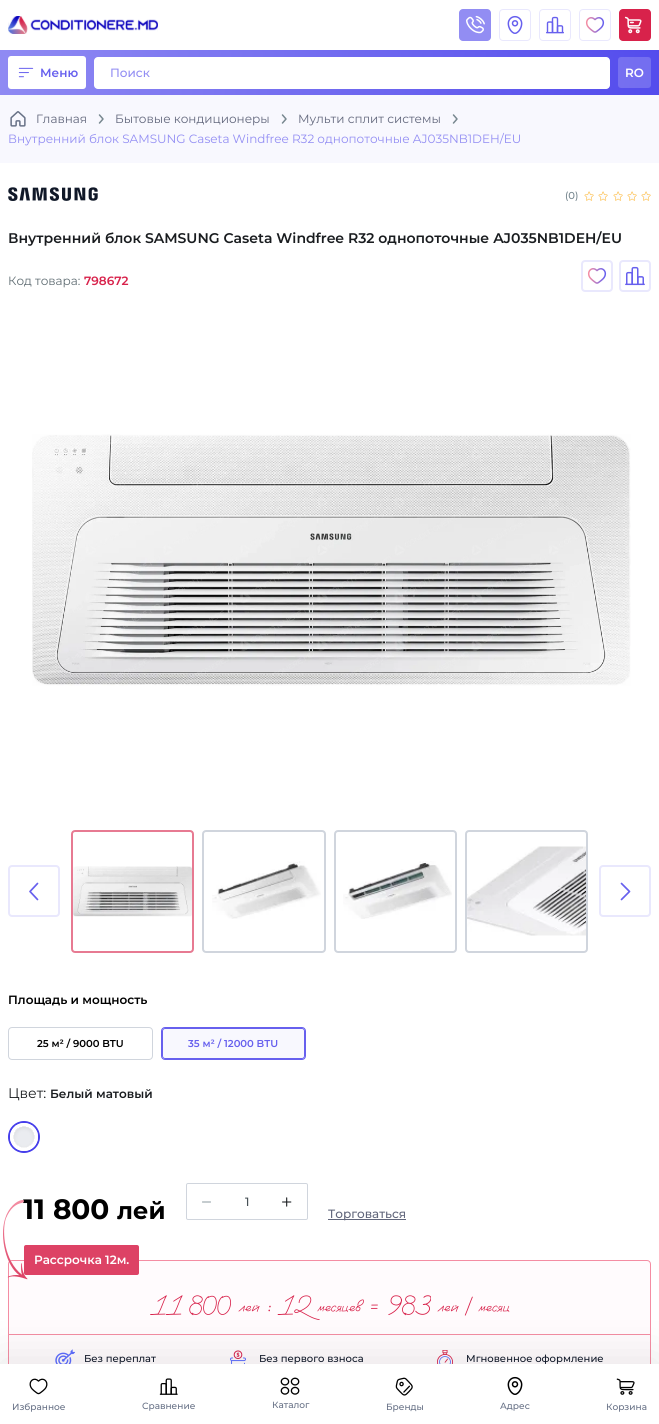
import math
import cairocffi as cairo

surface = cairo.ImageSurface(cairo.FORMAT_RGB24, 659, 1424)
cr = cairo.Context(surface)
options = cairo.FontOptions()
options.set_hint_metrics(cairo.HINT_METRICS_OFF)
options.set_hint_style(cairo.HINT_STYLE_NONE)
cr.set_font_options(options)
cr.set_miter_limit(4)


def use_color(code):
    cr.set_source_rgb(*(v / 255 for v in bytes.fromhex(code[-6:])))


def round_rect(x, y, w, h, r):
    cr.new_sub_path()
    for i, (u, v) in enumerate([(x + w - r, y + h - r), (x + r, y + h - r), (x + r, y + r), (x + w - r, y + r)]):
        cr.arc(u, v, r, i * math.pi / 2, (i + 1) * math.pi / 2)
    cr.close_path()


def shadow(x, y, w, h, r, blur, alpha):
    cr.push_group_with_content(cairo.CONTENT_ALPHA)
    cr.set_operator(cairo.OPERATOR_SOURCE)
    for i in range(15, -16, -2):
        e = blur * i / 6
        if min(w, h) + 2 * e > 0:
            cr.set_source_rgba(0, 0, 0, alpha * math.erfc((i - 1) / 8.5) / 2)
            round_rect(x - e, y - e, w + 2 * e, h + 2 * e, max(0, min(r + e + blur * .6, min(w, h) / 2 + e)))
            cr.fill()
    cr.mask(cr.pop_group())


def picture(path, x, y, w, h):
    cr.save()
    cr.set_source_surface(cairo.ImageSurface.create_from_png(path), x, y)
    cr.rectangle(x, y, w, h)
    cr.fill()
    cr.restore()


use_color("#ffffff")
cr.paint()
picture("img1.png", 8, 16, 150, 18)
use_color("#928df3")
round_rect(459, 9, 32, 32, 4)
cr.fill()
picture("img2.png", 466, 15, 19, 19)
round_rect(499.5, 9.5, 31, 31, 3.5)
use_color("#e9e8fd")
cr.set_line_width(1)
cr.stroke()
picture("img3.png", 507, 15, 16, 19)
round_rect(539.5, 9.5, 31, 31, 3.5)
cr.stroke()
picture("img4.png", 546, 16, 18, 18)
round_rect(579.5, 9.5, 31, 31, 3.5)
cr.stroke()
picture("img5.png", 585, 17, 20, 16)
use_color("#d8224b")
round_rect(619, 9, 32, 32, 4)
cr.fill()
picture("img6.png", 624, 16, 18, 18)
gradient = cairo.LinearGradient(-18, -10, 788, 131)
gradient.add_color_stop_rgba(0, 0.573, 0.553, 0.953, 1)
gradient.add_color_stop_rgba(1, 0.275, 0.243, 0.922, 1)
cr.set_source(gradient)
cr.rectangle(0, 50, 659, 2)
cr.fill()
gradient = cairo.LinearGradient(-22, 12, 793, 154)
gradient.add_color_stop_rgba(0, 0.573, 0.553, 0.953, 1)
gradient.add_color_stop_rgba(1, 0.275, 0.243, 0.922, 1)
cr.set_source(gradient)
cr.rectangle(0, 52, 659, 43)
cr.fill()
use_color("#ffffff")
round_rect(8, 56, 78, 33, 3)
cr.fill()
picture("img7.png", 18, 67, 16, 11)
cr.select_font_face("Montserrat SemiBold")
cr.set_font_size(12)
use_color("#6760ee")
cr.move_to(40, 77)
cr.show_text("Меню")
use_color("#ffffff")
round_rect(94, 57, 516, 32, 4)
cr.fill()
cr.select_font_face("Montserrat Medium")
use_color("#928df3")
cr.move_to(110, 77)
cr.show_text("Поиск")
cr.set_source_rgba(0.957, 0.957, 0.996, 0.2)
round_rect(618, 57, 33, 31, 3)
cr.fill()
cr.select_font_face("Montserrat SemiBold")
use_color("#ffffff")
cr.move_to(625, 77)
cr.show_text("RO")
use_color("#fffbfd")
round_rect(8.5, 1260.5, 642, 124, 3.5)
cr.fill_preserve()
use_color("#f48da3")
cr.stroke()
cr.rectangle(9, 1334, 641, 1)
cr.fill()
picture("img26.png", 55, 1349, 20, 15)
picture("img27.png", 230, 1350, 16, 14)
picture("img28.png", 437, 1350, 16, 14)
use_color("#000000")
shadow(0, 1360, 659, 60, 0, 22, 0.1)
use_color("#ffffff")
cr.rectangle(0, 1364, 659, 60)
cr.fill()
picture("img8.png", 29, 1378, 19, 17)
cr.select_font_face("Montserrat Medium")
cr.set_font_size(9)
use_color("#667085")
cr.move_to(12, 1410)
cr.show_text("Избранное")
picture("img9.png", 159, 1378, 19, 17)
cr.move_to(142, 1409)
cr.show_text("Сравнение")
picture("img10.png", 280, 1377, 20, 18)
cr.move_to(272, 1408)
cr.show_text("Каталог")
picture("img11.png", 395, 1377, 18, 19)
cr.move_to(386, 1410)
cr.show_text("Бренды")
picture("img12.png", 507, 1376, 16, 19)
cr.move_to(500, 1409)
cr.show_text("Адрес")
picture("img13.png", 616, 1378, 19, 17)
cr.move_to(606, 1410)
cr.show_text("Корзина")
use_color("#f8f8fe")
cr.rectangle(0, 95, 659, 68)
cr.fill()
picture("img14.png", 10, 111, 16, 16)
cr.select_font_face("Montserrat")
cr.set_font_size(12)
use_color("#61667b")
cr.move_to(36, 123)
cr.show_text("Главная")
cr.new_path()
cr.move_to(99.5, 115)
cr.line_to(103, 119)
cr.line_to(99.5, 123)
use_color("#77878f")
cr.set_line_width(1.5)
cr.set_line_cap(cairo.LINE_CAP_ROUND)
cr.set_line_join(cairo.LINE_JOIN_ROUND)
cr.stroke()
use_color("#61667b")
cr.move_to(115, 123)
cr.show_text("Бытовые кондиционеры")
cr.new_path()
cr.move_to(282.5, 115)
cr.line_to(286, 119)
cr.line_to(282.5, 123)
use_color("#77878f")
cr.stroke()
use_color("#61667b")
cr.move_to(298, 123)
cr.show_text("Мульти сплит системы")
cr.new_path()
cr.move_to(453.5, 115)
cr.line_to(457, 119)
cr.line_to(453.5, 123)
use_color("#77878f")
cr.stroke()
use_color("#928df3")
cr.move_to(8, 143)
cr.show_text("Внутренний блок SAMSUNG Caseta Windfree R32 однопоточные AJ035NB1DEH/EU")
picture("img15.png", 8, 187, 90, 14)
cr.select_font_face("Montserrat Medium")
cr.set_font_size(10)
use_color("#77878f")
cr.move_to(565, 199)
cr.show_text("(0)")
picture("img16.png", 584, 191, 10, 10)
picture("img16.png", 598, 191, 10, 10)
picture("img16.png", 613, 191, 10, 10)
picture("img16.png", 627, 191, 10, 10)
picture("img16.png", 641, 191, 10, 10)
cr.select_font_face("Montserrat SemiBold")
cr.set_font_size(14)
use_color("#191c1f")
cr.move_to(8, 243)
cr.show_text("Внутренний блок SAMSUNG Caseta Windfree R32 однопоточные AJ035NB1DEH/EU")
cr.select_font_face("Montserrat")
cr.set_font_size(12)
use_color("#5f6c72")
cr.move_to(8, 285)
cr.show_text("Код товара:")
cr.select_font_face("Montserrat SemiBold")
use_color("#d8224b")
cr.move_to(84, 285)
cr.show_text("798672")
round_rect(582, 261, 30, 30, 3)
use_color("#e9e8fd")
cr.set_line_width(2)
cr.set_line_cap(cairo.LINE_CAP_BUTT)
cr.set_line_join(cairo.LINE_JOIN_MITER)
cr.stroke()
picture("img5.png", 587, 268, 20, 16)
round_rect(620, 261, 30, 30, 3)
cr.stroke()
picture("img17.png", 625, 266, 20, 20)
picture("img18.png", 32, 434, 599, 252)
round_rect(9, 866, 50, 50, 3)
cr.stroke()
cr.new_path()
cr.move_to(37.5, 883.5)
cr.line_to(30, 891.5)
cr.line_to(37.5, 899.5)
use_color("#6760ee")
cr.set_line_width(1.7)
cr.set_line_cap(cairo.LINE_CAP_ROUND)
cr.set_line_join(cairo.LINE_JOIN_ROUND)
cr.stroke()
round_rect(72, 831, 121, 121, 3)
use_color("#e77a92")
cr.set_line_width(2)
cr.set_line_cap(cairo.LINE_CAP_BUTT)
cr.set_line_join(cairo.LINE_JOIN_MITER)
cr.stroke()
picture("img19.png", 73, 866, 119, 51)
round_rect(203, 831, 122, 121, 3)
use_color("#d0d5dd")
cr.stroke()
picture("img20.png", 212, 861, 109, 58)
round_rect(335, 831, 121, 121, 3)
cr.stroke()
picture("img21.png", 343, 861, 109, 58)
round_rect(466, 831, 121, 121, 3)
cr.stroke()
picture("img22.png", 467, 846, 119, 90)
round_rect(600, 866, 50, 50, 3)
use_color("#e9e8fd")
cr.stroke()
cr.new_path()
cr.move_to(621.5, 883.5)
cr.line_to(629.5, 891.5)
cr.line_to(621.5, 899.5)
use_color("#6760ee")
cr.set_line_width(1.7)
cr.set_line_cap(cairo.LINE_CAP_ROUND)
cr.set_line_join(cairo.LINE_JOIN_ROUND)
cr.stroke()
use_color("#000000")
cr.move_to(8, 1004)
cr.show_text("Площадь и мощность")
round_rect(8.5, 1027.5, 144, 32, 3.5)
use_color("#d0d5dd")
cr.set_line_width(1)
cr.set_line_cap(cairo.LINE_CAP_BUTT)
cr.set_line_join(cairo.LINE_JOIN_MITER)
cr.stroke()
cr.set_font_size(10)
use_color("#000000")
cr.move_to(37, 1047)
cr.show_text("25 м² / 9000 BTU")
use_color("#f8f8fe")
round_rect(161.5, 1027.5, 144, 32, 3.5)
cr.fill_preserve()
use_color("#6760ee")
cr.stroke()
round_rect(162.5, 1028.5, 142, 30, 2.5)
cr.stroke()
cr.move_to(188, 1047)
cr.show_text("35 м² / 12000 BTU")
cr.select_font_face("Montserrat")
cr.set_font_size(14)
use_color("#191c1f")
cr.move_to(8, 1098)
cr.show_text("Цвет:")
cr.select_font_face("Montserrat SemiBold")
cr.set_font_size(12)
cr.move_to(50, 1098)
cr.show_text("Белый матовый")
cr.new_path()
cr.arc(24, 1137, 15, 0, 2 * math.pi)
use_color("#463eeb")
cr.set_line_width(2)
cr.stroke()
picture("img23.png", 10, 1123, 28, 28)
cr.select_font_face("Montserrat", cairo.FONT_SLANT_NORMAL, cairo.FONT_WEIGHT_BOLD)
cr.set_font_size(28)
use_color("#000000")
cr.move_to(23, 1219)
cr.show_text("11 800")
cr.set_font_size(24)
cr.move_to(117, 1219)
cr.show_text("лей")
round_rect(186.5, 1183.5, 121, 36, 1.5)
use_color("#d0d5dd")
cr.set_line_width(1)
cr.stroke()
cr.new_path()
cr.move_to(202.5, 1202)
cr.line_to(210.5, 1202)
use_color("#929fa5")
cr.set_line_width(1.1)
cr.set_line_cap(cairo.LINE_CAP_ROUND)
cr.set_line_join(cairo.LINE_JOIN_ROUND)
cr.stroke()
cr.select_font_face("Montserrat Medium")
cr.set_font_size(12)
use_color("#475156")
cr.move_to(245, 1206)
cr.show_text("1")
picture("img24.png", 282, 1197, 10, 10)
use_color("#61667b")
cr.rectangle(328, 1219, 78, 1)
cr.fill()
cr.move_to(328, 1218)
cr.show_text("Торговаться")
use_color("#dd4265")
round_rect(24, 1245, 115, 30, 2)
cr.fill()
picture("img25.png", 3, 1200, 25, 80)
cr.select_font_face("Montserrat SemiBold")
use_color("#ffffff")
cr.move_to(34, 1264)
cr.show_text("Рассрочка 12м.")
cr.select_font_face("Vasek", cairo.FONT_SLANT_ITALIC)
cr.set_font_size(28)
use_color("#d8224b")
cr.move_to(150, 1315)
cr.show_text("11 800")
cr.set_font_size(26)
cr.move_to(238, 1315)
cr.show_text("лей")
cr.set_font_size(28)
cr.move_to(266, 1315)
cr.show_text(": 12")
cr.set_font_size(26)
cr.move_to(317, 1315)
cr.show_text("месяцев")
cr.set_font_size(28)
cr.move_to(367, 1315)
cr.show_text("= 983")
cr.set_font_size(26)
cr.move_to(437, 1315)
cr.show_text("лей / месяц")
cr.select_font_face("Montserrat Medium")
cr.set_font_size(10)
use_color("#101828")
cr.move_to(84, 1362)
cr.show_text("Без переплат")
cr.move_to(259, 1362)
cr.show_text("Без первого взноса")
cr.move_to(466, 1362)
cr.show_text("Мгновенное оформление")
surface.write_to_png("result.png")
